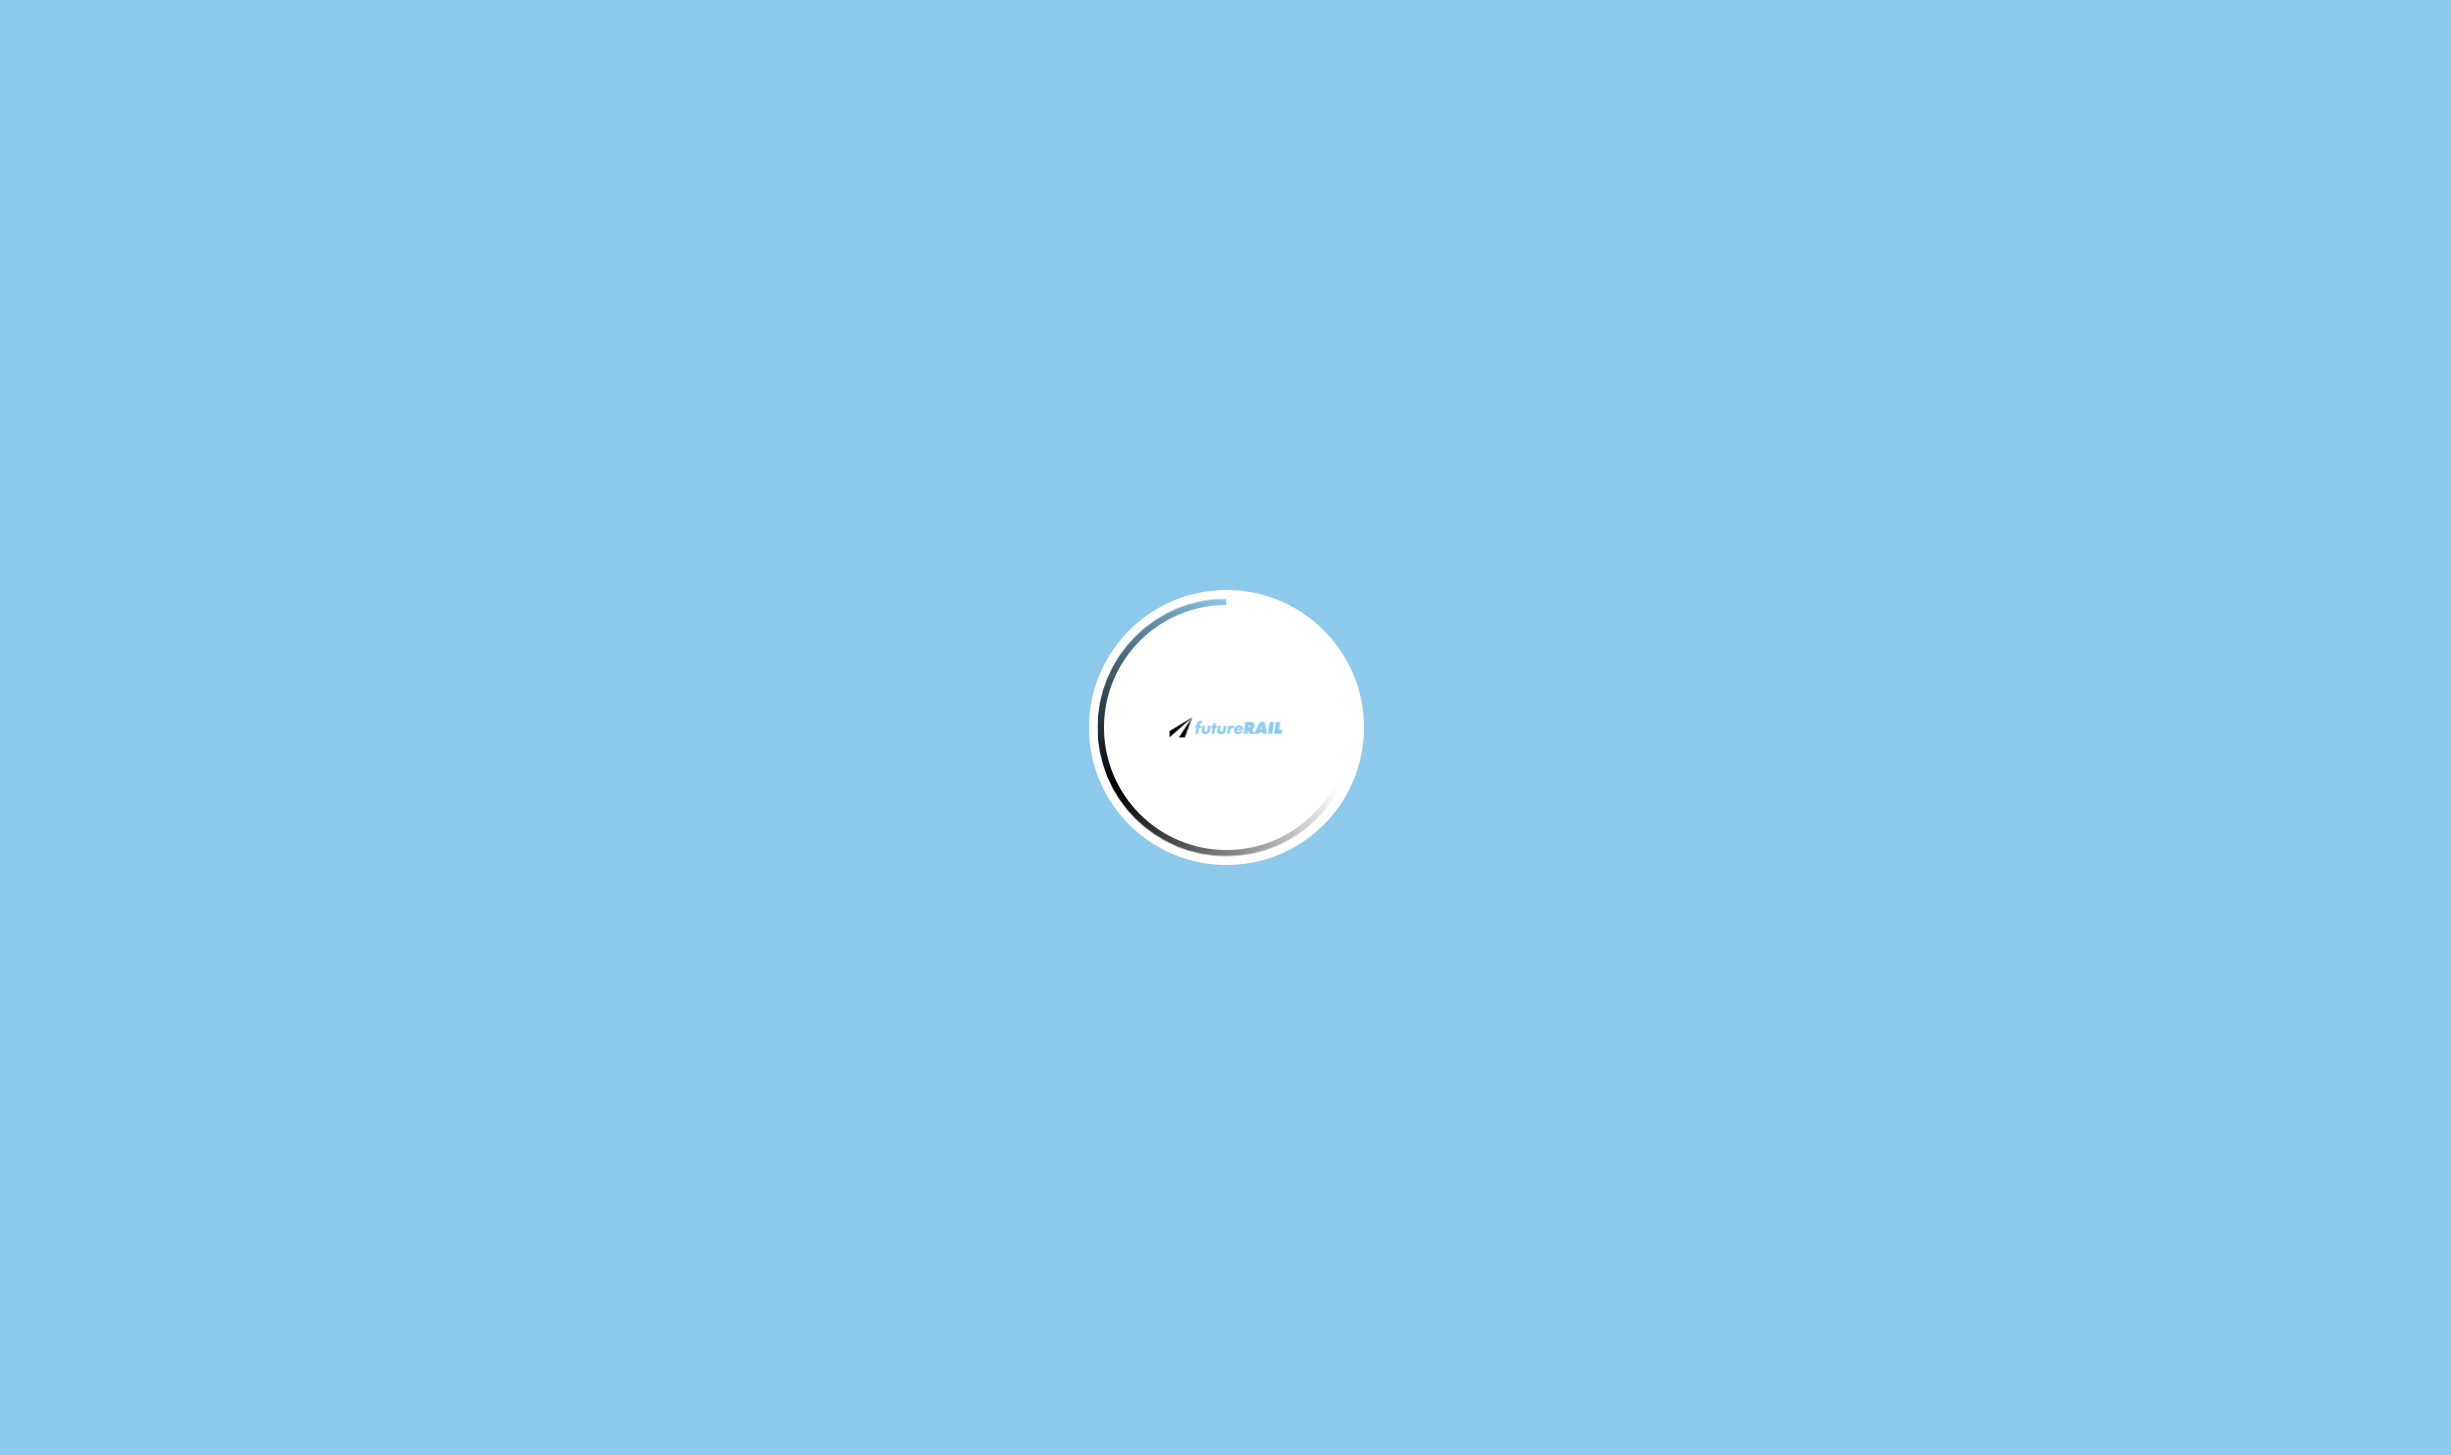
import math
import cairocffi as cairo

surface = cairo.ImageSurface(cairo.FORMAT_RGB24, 2451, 1455)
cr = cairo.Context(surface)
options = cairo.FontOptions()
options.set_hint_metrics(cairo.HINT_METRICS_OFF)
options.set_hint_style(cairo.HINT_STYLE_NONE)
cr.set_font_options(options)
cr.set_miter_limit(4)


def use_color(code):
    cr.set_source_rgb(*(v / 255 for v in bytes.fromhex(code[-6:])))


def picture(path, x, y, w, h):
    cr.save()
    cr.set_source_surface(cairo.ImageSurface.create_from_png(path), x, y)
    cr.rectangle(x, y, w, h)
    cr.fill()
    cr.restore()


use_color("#8dc9eb")
cr.paint()
use_color("#ffffff")
cr.arc(1226.5, 727.5, 137.5, 0, 2 * math.pi)
cr.fill()
picture("img1.png", 1097, 598, 239, 259)
cr.arc(1226.5, 727.5, 122.5, 0, 2 * math.pi)
cr.fill()
picture("img2.png", 1169, 717, 114, 21)
surface.write_to_png("result.png")
